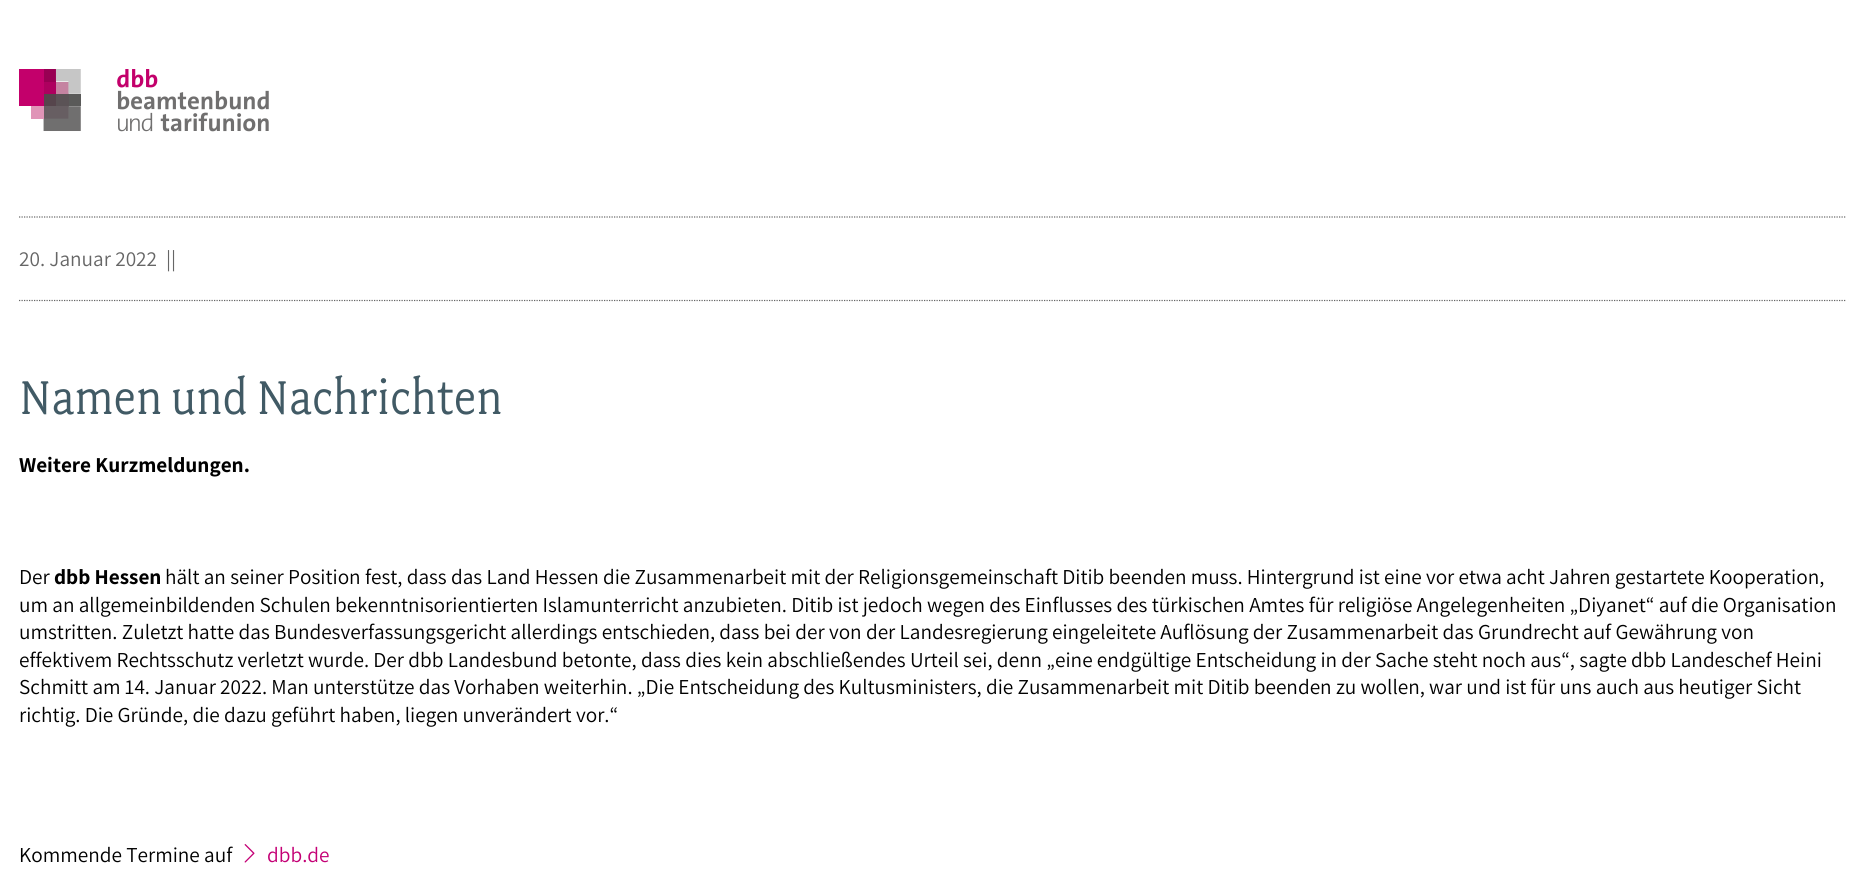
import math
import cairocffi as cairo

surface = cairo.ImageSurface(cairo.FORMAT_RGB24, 1865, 887)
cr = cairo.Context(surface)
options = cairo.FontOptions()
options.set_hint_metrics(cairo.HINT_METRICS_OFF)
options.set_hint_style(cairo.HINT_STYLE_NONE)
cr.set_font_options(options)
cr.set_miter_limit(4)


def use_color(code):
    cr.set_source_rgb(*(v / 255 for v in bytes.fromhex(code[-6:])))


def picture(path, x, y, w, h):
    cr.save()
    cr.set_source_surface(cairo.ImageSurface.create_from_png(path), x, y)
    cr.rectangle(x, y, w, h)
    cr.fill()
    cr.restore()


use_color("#ffffff")
cr.paint()
picture("img1.png", 19, 69, 250, 63)
cr.new_path()
cr.move_to(19, 217)
cr.line_to(1846, 217)
use_color("#666666")
cr.set_line_width(1.2)
cr.set_dash([1.25, 1.25])
cr.stroke()
cr.new_path()
cr.move_to(19, 300.5)
cr.line_to(1846, 300.5)
cr.stroke()
cr.select_font_face("Assistant")
cr.set_font_size(21.25)
cr.move_to(19, 266)
cr.show_text("20. Januar 2022")
cr.move_to(166, 266)
cr.show_text("||")
cr.select_font_face("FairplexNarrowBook")
cr.set_font_size(53.1)
use_color("#415a65")
cr.move_to(19, 414)
cr.show_text("Namen und Nachrichten")
cr.select_font_face("Assistant", cairo.FONT_SLANT_NORMAL, cairo.FONT_WEIGHT_BOLD)
cr.set_font_size(21.25)
use_color("#000000")
cr.move_to(19, 472)
cr.show_text("Weitere Kurzmeldungen.")
cr.select_font_face("Assistant")
cr.move_to(19, 584)
cr.show_text("Der")
cr.select_font_face("Assistant", cairo.FONT_SLANT_NORMAL, cairo.FONT_WEIGHT_BOLD)
cr.move_to(54, 584)
cr.show_text("dbb Hessen")
cr.select_font_face("Assistant")
cr.move_to(165, 584)
cr.show_text("hält an seiner Position fest, dass das Land Hessen die Zusammenarbeit mit der Religionsgemeinschaft Ditib beenden muss. Hintergrund ist eine vor etwa acht Jahren gestartete Kooperation,")
cr.move_to(19, 612)
cr.show_text("um an allgemeinbildenden Schulen bekenntnisorientierten Islamunterricht anzubieten. Ditib ist jedoch wegen des Einflusses des türkischen Amtes für religiöse Angelegenheiten „Diyanet“ auf die Organisation")
cr.move_to(19, 639)
cr.show_text("umstritten. Zuletzt hatte das Bundesverfassungsgericht allerdings entschieden, dass bei der von der Landesregierung eingeleitete Auflösung der Zusammenarbeit das Grundrecht auf Gewährung von")
cr.move_to(19, 667)
cr.show_text("effektivem Rechtsschutz verletzt wurde. Der dbb Landesbund betonte, dass dies kein abschließendes Urteil sei, denn „eine endgültige Entscheidung in der Sache steht noch aus“, sagte dbb Landeschef Heini")
cr.move_to(19, 694)
cr.show_text("Schmitt am 14. Januar 2022. Man unterstütze das Vorhaben weiterhin. „Die Entscheidung des Kultusministers, die Zusammenarbeit mit Ditib beenden zu wollen, war und ist für uns auch aus heutiger Sicht")
cr.move_to(19, 722)
cr.show_text("richtig. Die Gründe, die dazu geführt haben, liegen unverändert vor.“")
cr.move_to(19, 862)
cr.show_text("Kommende Termine auf")
picture("img2.png", 244, 844, 11, 19)
use_color("#c40075")
cr.move_to(267, 862)
cr.show_text("dbb.de")
surface.write_to_png("result.png")
